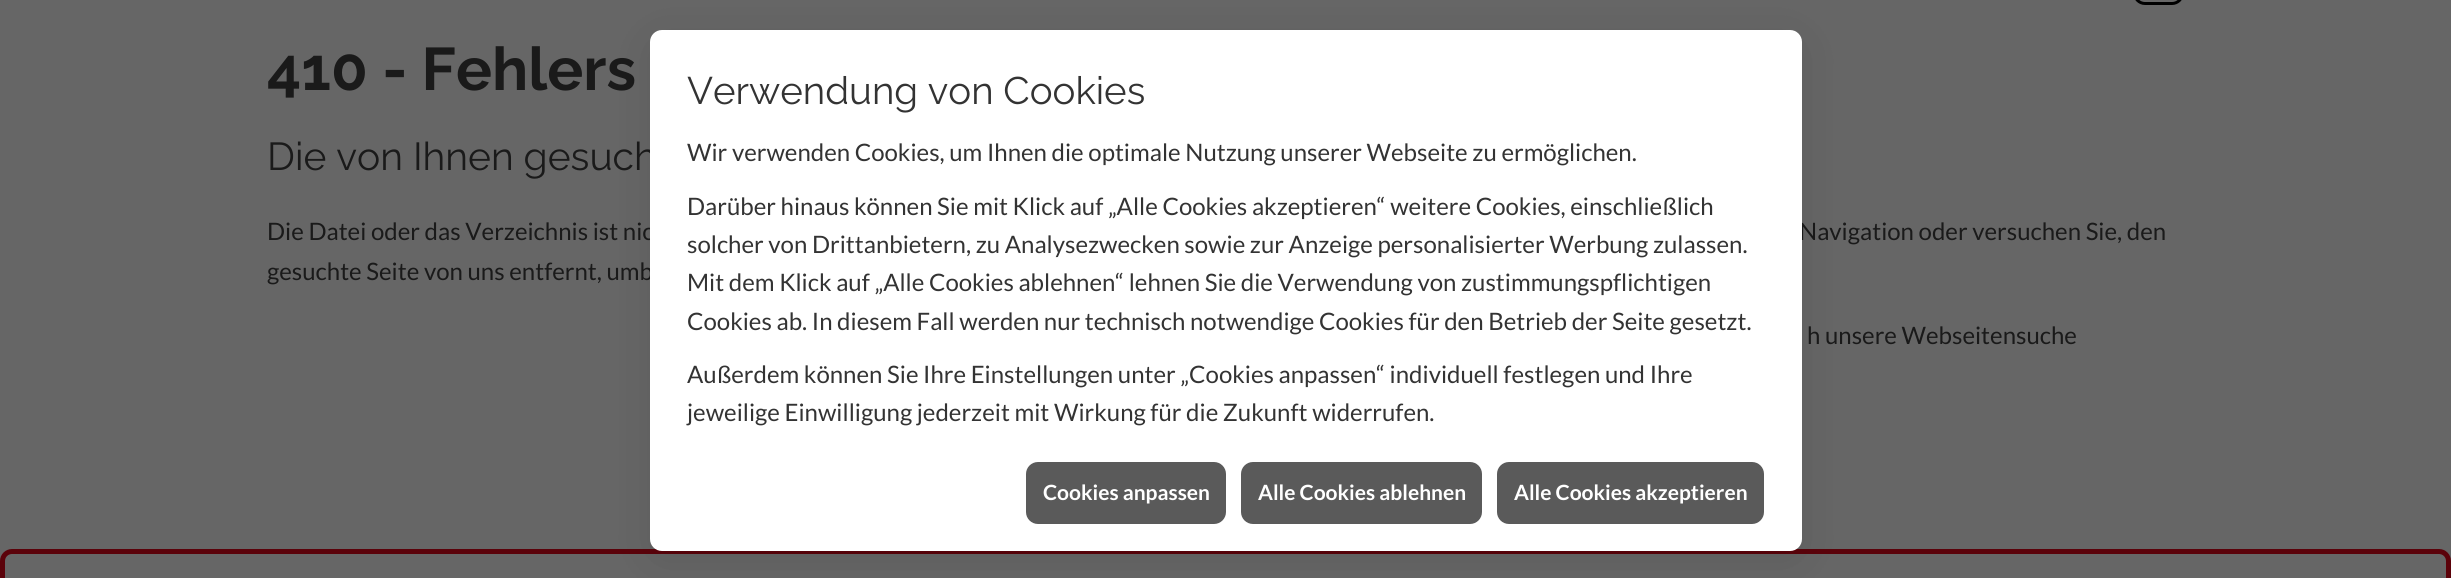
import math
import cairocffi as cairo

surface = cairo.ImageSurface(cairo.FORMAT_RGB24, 2451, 578)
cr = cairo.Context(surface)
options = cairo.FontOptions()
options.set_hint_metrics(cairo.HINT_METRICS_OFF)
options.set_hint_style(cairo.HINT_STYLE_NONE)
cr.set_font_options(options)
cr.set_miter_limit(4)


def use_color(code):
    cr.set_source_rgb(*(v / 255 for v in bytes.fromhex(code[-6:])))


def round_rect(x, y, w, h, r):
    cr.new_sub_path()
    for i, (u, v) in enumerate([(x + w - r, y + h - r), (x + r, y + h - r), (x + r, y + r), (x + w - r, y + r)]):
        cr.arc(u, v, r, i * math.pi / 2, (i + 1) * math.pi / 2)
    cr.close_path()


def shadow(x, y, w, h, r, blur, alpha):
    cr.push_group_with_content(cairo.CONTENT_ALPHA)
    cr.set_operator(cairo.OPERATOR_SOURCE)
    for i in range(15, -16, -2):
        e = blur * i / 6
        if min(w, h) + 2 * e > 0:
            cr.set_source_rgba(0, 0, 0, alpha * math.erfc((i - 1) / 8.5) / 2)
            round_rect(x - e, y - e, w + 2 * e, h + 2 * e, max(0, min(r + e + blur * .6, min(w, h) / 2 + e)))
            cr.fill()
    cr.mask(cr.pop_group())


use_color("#666666")
cr.paint()
round_rect(2134.5, -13.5, 48, 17, 10.5)
use_color("#000000")
cr.set_line_width(3)
cr.stroke()
cr.select_font_face("Raleway", cairo.FONT_SLANT_NORMAL, cairo.FONT_WEIGHT_BOLD)
cr.set_font_size(60)
use_color("#1a1a1a")
cr.move_to(267, 90)
cr.show_text("410 - Fehlers")
cr.select_font_face("Raleway")
cr.set_font_size(39)
cr.move_to(267, 170)
cr.show_text("Die von Ihnen gesuch")
cr.select_font_face("Lato")
cr.set_font_size(24)
cr.move_to(267, 240)
cr.show_text("Die Datei oder das Verzeichnis ist nic")
cr.move_to(267, 280)
cr.show_text("gesuchte Seite von uns entfernt, umb")
cr.move_to(1799, 240)
cr.show_text("Navigation oder versuchen Sie, den")
cr.move_to(1807, 344)
cr.show_text("h unsere Webseitensuche")
round_rect(2.5, 551.5, 2446, 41, 9.5)
use_color("#5b020a")
cr.set_line_width(5)
cr.stroke()
use_color("#000000")
shadow(650, 39, 1152, 521, 12, 21, 0.1)
use_color("#ffffff")
round_rect(650, 30, 1152, 521, 12)
cr.fill()
cr.select_font_face("Raleway")
cr.set_font_size(38.4)
use_color("#333333")
cr.move_to(687, 104)
cr.show_text("Verwendung von Cookies")
cr.select_font_face("Lato")
cr.set_font_size(24)
cr.move_to(687, 161)
cr.show_text("Wir verwenden Cookies, um Ihnen die optimale Nutzung unserer Webseite zu ermöglichen.")
cr.move_to(687, 215)
cr.show_text("Darüber hinaus können Sie mit Klick auf „Alle Cookies akzeptieren“ weitere Cookies, einschließlich")
cr.move_to(687, 253)
cr.show_text("solcher von Drittanbietern, zu Analysezwecken sowie zur Anzeige personalisierter Werbung zulassen.")
cr.move_to(687, 291)
cr.show_text("Mit dem Klick auf „Alle Cookies ablehnen“ lehnen Sie die Verwendung von zustimmungspflichtigen")
cr.move_to(687, 330)
cr.show_text("Cookies ab. In diesem Fall werden nur technisch notwendige Cookies für den Betrieb der Seite gesetzt.")
cr.move_to(687, 383)
cr.show_text("Außerdem können Sie Ihre Einstellungen unter „Cookies anpassen“ individuell festlegen und Ihre")
cr.move_to(687, 421)
cr.show_text("jeweilige Einwilligung jederzeit mit Wirkung für die Zukunft widerrufen.")
use_color("#5a5a5a")
round_rect(1027, 463, 198, 60, 11)
cr.fill_preserve()
cr.set_line_width(2)
cr.stroke()
cr.select_font_face("Lato", cairo.FONT_SLANT_NORMAL, cairo.FONT_WEIGHT_BOLD)
cr.set_font_size(21)
use_color("#ffffff")
cr.move_to(1043, 500)
cr.show_text("Cookies anpassen")
use_color("#5a5a5a")
round_rect(1242, 463, 239, 60, 11)
cr.fill_preserve()
cr.stroke()
use_color("#ffffff")
cr.move_to(1258, 500)
cr.show_text("Alle Cookies ablehnen")
use_color("#5a5a5a")
round_rect(1498, 463, 265, 60, 11)
cr.fill_preserve()
cr.stroke()
use_color("#ffffff")
cr.move_to(1514, 500)
cr.show_text("Alle Cookies akzeptieren")
surface.write_to_png("result.png")
